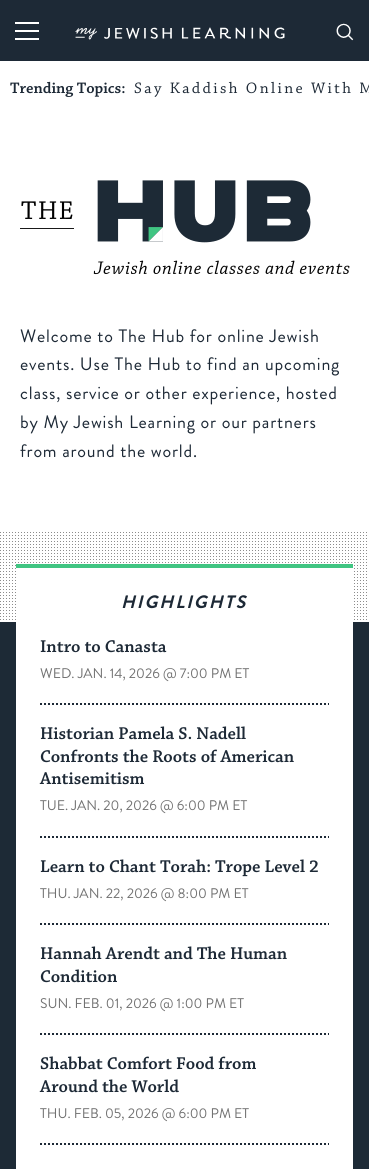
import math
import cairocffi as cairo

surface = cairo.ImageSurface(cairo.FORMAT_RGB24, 369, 1169)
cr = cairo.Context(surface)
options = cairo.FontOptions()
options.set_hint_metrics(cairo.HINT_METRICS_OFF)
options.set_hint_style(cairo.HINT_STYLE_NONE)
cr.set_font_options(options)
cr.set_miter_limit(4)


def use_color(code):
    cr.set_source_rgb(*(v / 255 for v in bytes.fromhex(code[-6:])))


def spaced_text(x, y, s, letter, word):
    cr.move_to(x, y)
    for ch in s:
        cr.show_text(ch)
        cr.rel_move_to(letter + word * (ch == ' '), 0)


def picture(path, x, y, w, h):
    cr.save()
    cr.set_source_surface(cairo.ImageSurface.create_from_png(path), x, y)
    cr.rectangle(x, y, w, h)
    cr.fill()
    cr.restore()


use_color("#ffffff")
cr.paint()
use_color("#1d2936")
cr.rectangle(0, 0, 369, 61)
cr.fill()
use_color("#ffffff")
cr.rectangle(15, 38, 24, 2)
cr.fill()
cr.rectangle(15, 22, 24, 2)
cr.fill()
cr.rectangle(15, 30, 24, 2)
cr.fill()
picture("img1.png", 75, 27, 210, 13)
picture("img2.png", 336, 23, 18, 18)
cr.select_font_face("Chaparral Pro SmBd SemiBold")
cr.set_font_size(16)
use_color("#1d2936")
cr.move_to(10, 93)
cr.show_text("Trending Topics:")
cr.select_font_face("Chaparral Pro")
spaced_text(134, 93, "Say Kaddish Online With M", 2.4, 0)
picture("img3.png", 20, 180, 330, 95)
cr.select_font_face("Brandon Grotesque")
cr.set_font_size(18)
spaced_text(20, 342, "Welcome to The Hub for online Jewish", 0.8, 0)
spaced_text(20, 370, "events. Use The Hub to find an upcoming", 0.8, 0)
spaced_text(20, 399, "class, service or other experience, hosted", 0.8, 0)
spaced_text(20, 428, "by My Jewish Learning or our partners", 0.8, 0)
spaced_text(20, 457, "from around the world.", 0.8, 0)
use_color("#1d2a36")
cr.rectangle(0, 622, 369, 547)
cr.fill()
picture("img4.png", 0, 532, 369, 90)
use_color("#ffffff")
cr.rectangle(16, 568, 337, 601)
cr.fill()
use_color("#40c582")
cr.rectangle(16, 564, 337, 4)
cr.fill()
cr.select_font_face("Brandon Grotesque", cairo.FONT_SLANT_ITALIC, cairo.FONT_WEIGHT_BOLD)
use_color("#1d2936")
spaced_text(121, 608, "HIGHLIGHTS", 2, 0)
cr.new_path()
cr.move_to(40, 704)
cr.line_to(329, 704)
cr.set_dash([2, 2])
cr.stroke()
cr.select_font_face("Chaparral Pro SmBd SemiBold")
cr.move_to(40, 652)
cr.show_text("Intro to Canasta")
cr.select_font_face("Brandon Grotesque")
cr.set_font_size(14)
use_color("#717171")
cr.move_to(40, 678)
cr.show_text("WED. JAN. 14, 2026 @ 7:00 PM ET")
cr.new_path()
cr.move_to(40, 837)
cr.line_to(329, 837)
use_color("#1d2936")
cr.stroke()
cr.select_font_face("Chaparral Pro SmBd SemiBold")
cr.set_font_size(18)
cr.move_to(40, 739)
cr.show_text("Historian Pamela S. Nadell")
cr.move_to(40, 762)
cr.show_text("Confronts the Roots of American")
cr.move_to(40, 784)
cr.show_text("Antisemitism")
cr.select_font_face("Brandon Grotesque")
cr.set_font_size(14)
use_color("#717171")
cr.move_to(40, 810)
cr.show_text("TUE. JAN. 20, 2026 @ 6:00 PM ET")
cr.new_path()
cr.move_to(40, 924)
cr.line_to(329, 924)
use_color("#1d2936")
cr.stroke()
cr.select_font_face("Chaparral Pro SmBd SemiBold")
cr.set_font_size(18)
cr.move_to(40, 872)
cr.show_text("Learn to Chant Torah: Trope Level 2")
cr.select_font_face("Brandon Grotesque")
cr.set_font_size(14)
use_color("#717171")
cr.move_to(40, 898)
cr.show_text("THU. JAN. 22, 2026 @ 8:00 PM ET")
cr.new_path()
cr.move_to(40, 1034)
cr.line_to(329, 1034)
use_color("#1d2936")
cr.stroke()
cr.select_font_face("Chaparral Pro SmBd SemiBold")
cr.set_font_size(18)
cr.move_to(40, 959)
cr.show_text("Hannah Arendt and The Human")
cr.move_to(40, 982)
cr.show_text("Condition")
cr.select_font_face("Brandon Grotesque")
cr.set_font_size(14)
use_color("#717171")
cr.move_to(40, 1008)
cr.show_text("SUN. FEB. 01, 2026 @ 1:00 PM ET")
cr.new_path()
cr.move_to(40, 1144)
cr.line_to(329, 1144)
use_color("#1d2936")
cr.stroke()
cr.select_font_face("Chaparral Pro SmBd SemiBold")
cr.set_font_size(18)
cr.move_to(40, 1069)
cr.show_text("Shabbat Comfort Food from")
cr.move_to(40, 1092)
cr.show_text("Around the World")
cr.select_font_face("Brandon Grotesque")
cr.set_font_size(14)
use_color("#717171")
cr.move_to(40, 1118)
cr.show_text("THU. FEB. 05, 2026 @ 6:00 PM ET")
surface.write_to_png("result.png")
